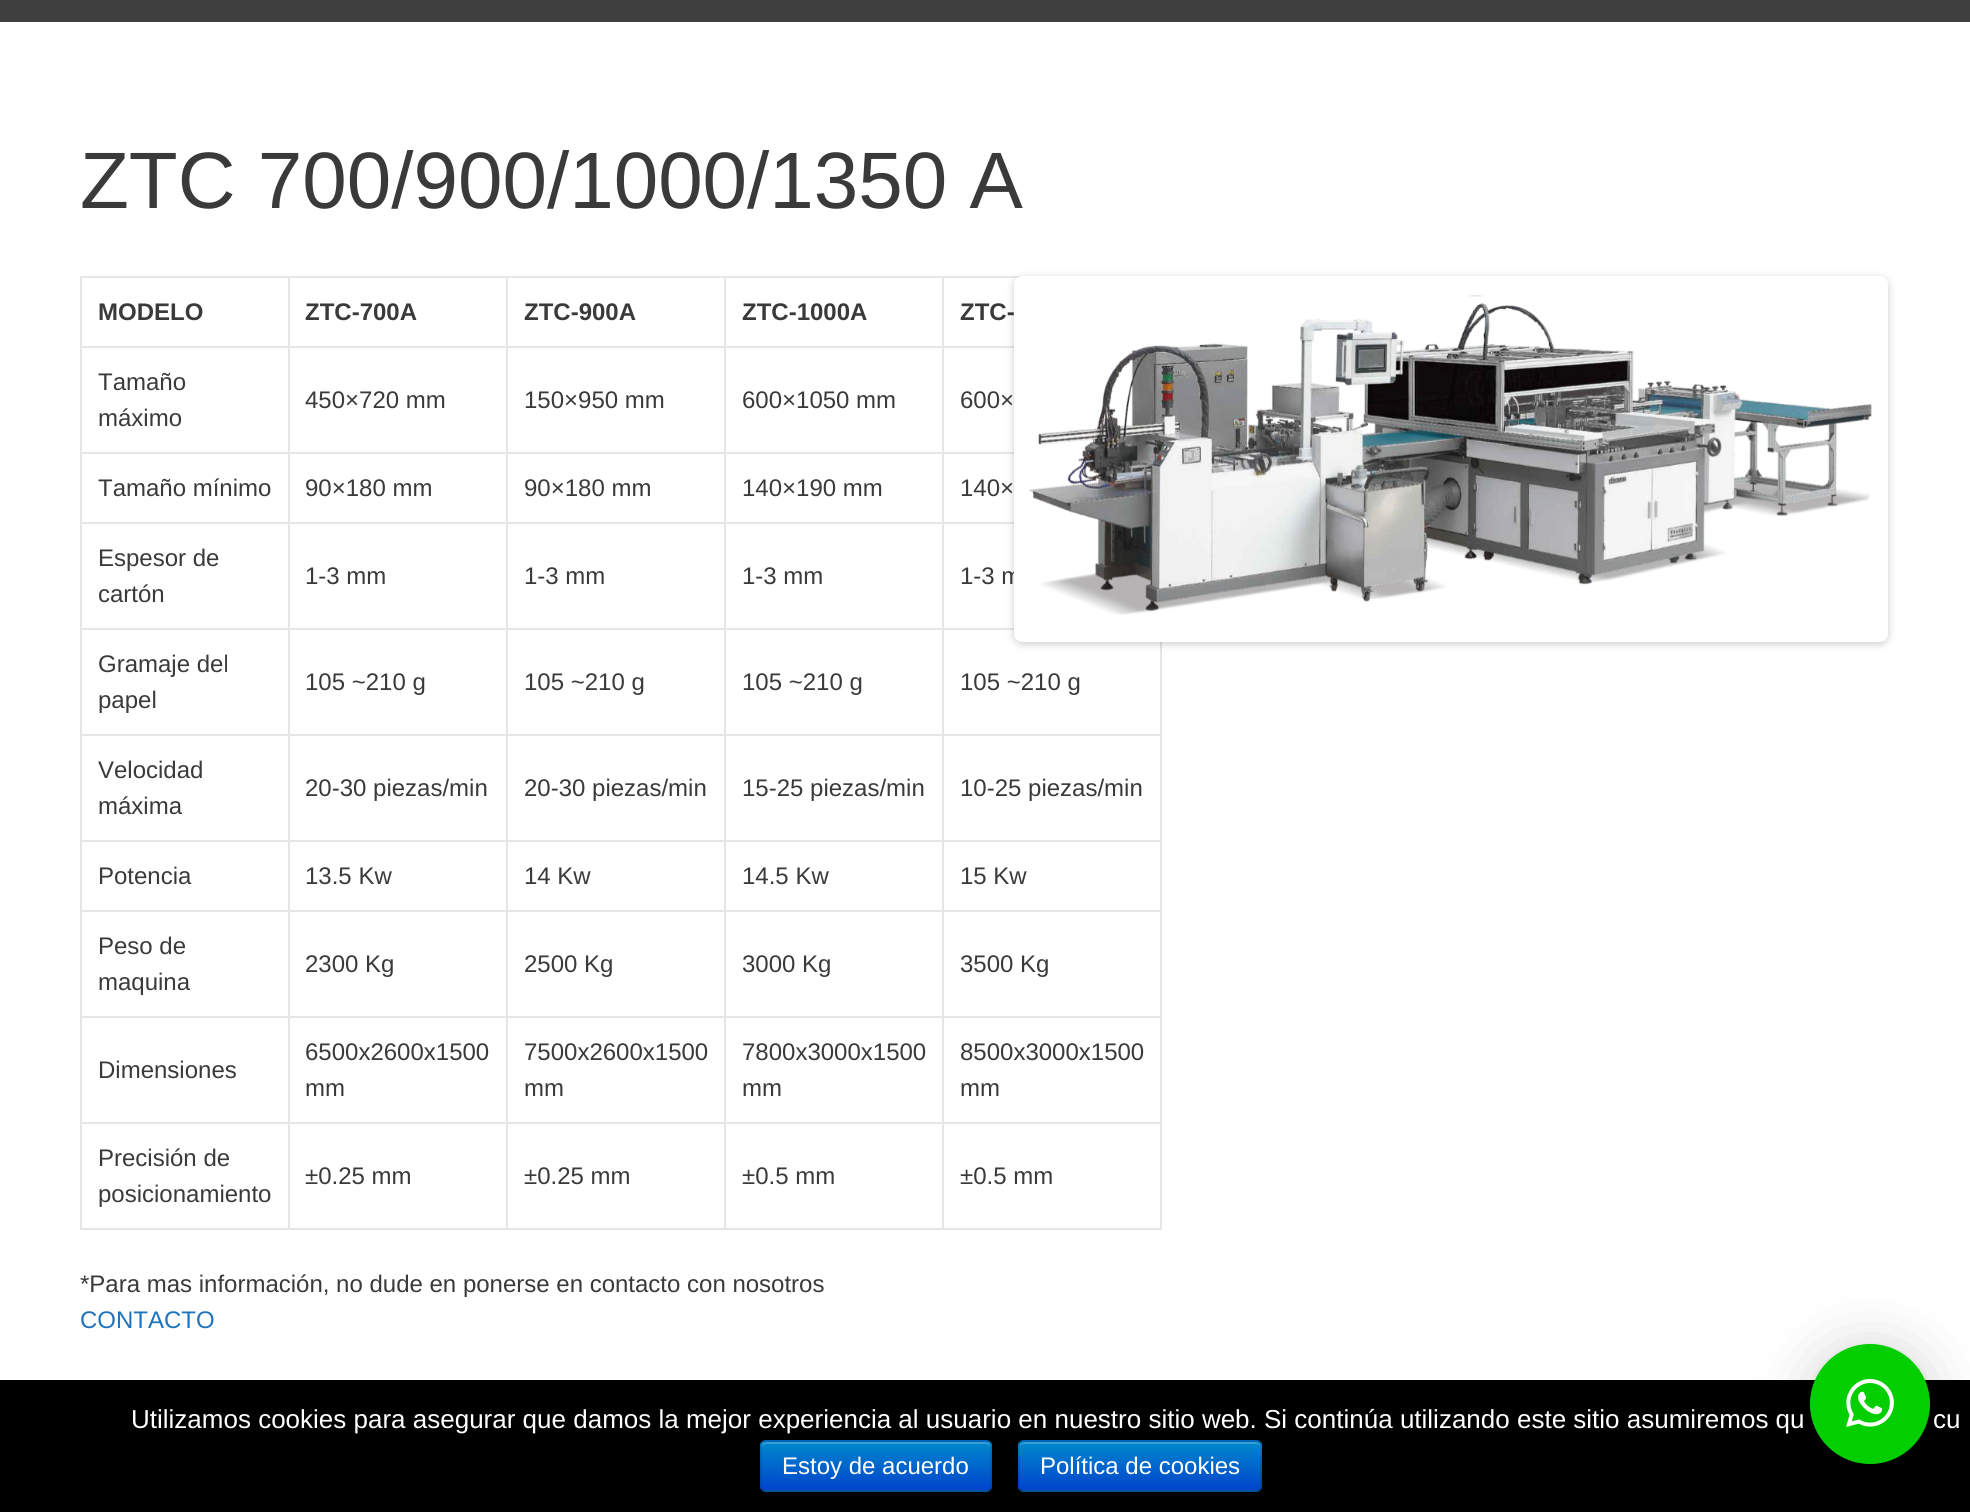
import math
import cairocffi as cairo

surface = cairo.ImageSurface(cairo.FORMAT_RGB24, 1970, 1512)
cr = cairo.Context(surface)
options = cairo.FontOptions()
options.set_hint_metrics(cairo.HINT_METRICS_OFF)
options.set_hint_style(cairo.HINT_STYLE_NONE)
cr.set_font_options(options)
cr.set_miter_limit(4)


def use_color(code):
    cr.set_source_rgb(*(v / 255 for v in bytes.fromhex(code[-6:])))


def round_rect(x, y, w, h, r):
    cr.new_sub_path()
    for i, (u, v) in enumerate([(x + w - r, y + h - r), (x + r, y + h - r), (x + r, y + r), (x + w - r, y + r)]):
        cr.arc(u, v, r, i * math.pi / 2, (i + 1) * math.pi / 2)
    cr.close_path()


def shadow(x, y, w, h, r, blur, alpha):
    cr.push_group_with_content(cairo.CONTENT_ALPHA)
    cr.set_operator(cairo.OPERATOR_SOURCE)
    for i in range(15, -16, -2):
        e = blur * i / 6
        if min(w, h) + 2 * e > 0:
            cr.set_source_rgba(0, 0, 0, alpha * math.erfc((i - 1) / 8.5) / 2)
            round_rect(x - e, y - e, w + 2 * e, h + 2 * e, max(0, min(r + e + blur * .6, min(w, h) / 2 + e)))
            cr.fill()
    cr.mask(cr.pop_group())


def picture(path, x, y, w, h):
    cr.save()
    cr.set_source_surface(cairo.ImageSurface.create_from_png(path), x, y)
    cr.rectangle(x, y, w, h)
    cr.fill()
    cr.restore()


use_color("#ffffff")
cr.paint()
use_color("#3f3f3f")
cr.rectangle(0, 0, 1970, 22)
cr.fill()
cr.select_font_face("Liberation Sans")
cr.set_font_size(80)
use_color("#3a3a3a")
cr.move_to(80, 208)
cr.show_text("ZTC 700/900/1000/1350 A")
use_color("#e6e6e6")
cr.new_path()
cr.move_to(80, 276)
cr.line_to(1162, 276)
cr.line_to(1162, 278)
cr.line_to(82, 278)
cr.close_path()
cr.fill()
cr.set_source_rgba(0, 0, 0, 0.1)
cr.new_path()
cr.move_to(80, 1230)
cr.line_to(80, 276)
cr.line_to(82, 278)
cr.line_to(82, 1230)
cr.close_path()
cr.fill()
use_color("#e6e6e6")
cr.new_path()
cr.move_to(290, 278)
cr.line_to(290, 348)
cr.line_to(288, 346)
cr.line_to(288, 278)
cr.close_path()
cr.fill()
cr.set_source_rgba(0, 0, 0, 0.1)
cr.new_path()
cr.move_to(290, 348)
cr.line_to(82, 348)
cr.line_to(82, 346)
cr.line_to(288, 346)
cr.close_path()
cr.fill()
cr.select_font_face("Liberation Sans", cairo.FONT_SLANT_NORMAL, cairo.FONT_WEIGHT_BOLD)
cr.set_font_size(24)
use_color("#3a3a3a")
cr.move_to(98, 320)
cr.show_text("MODELO")
use_color("#e6e6e6")
cr.new_path()
cr.move_to(508, 278)
cr.line_to(508, 348)
cr.line_to(506, 346)
cr.line_to(506, 278)
cr.close_path()
cr.fill()
cr.set_source_rgba(0, 0, 0, 0.1)
cr.new_path()
cr.move_to(508, 348)
cr.line_to(290, 348)
cr.line_to(290, 346)
cr.line_to(506, 346)
cr.close_path()
cr.fill()
use_color("#3a3a3a")
cr.move_to(305, 320)
cr.show_text("ZTC-700A")
use_color("#e6e6e6")
cr.new_path()
cr.move_to(726, 278)
cr.line_to(726, 348)
cr.line_to(724, 346)
cr.line_to(724, 278)
cr.close_path()
cr.fill()
cr.set_source_rgba(0, 0, 0, 0.1)
cr.new_path()
cr.move_to(726, 348)
cr.line_to(508, 348)
cr.line_to(508, 346)
cr.line_to(724, 346)
cr.close_path()
cr.fill()
use_color("#3a3a3a")
cr.move_to(524, 320)
cr.show_text("ZTC-900A")
use_color("#e6e6e6")
cr.new_path()
cr.move_to(944, 278)
cr.line_to(944, 348)
cr.line_to(942, 346)
cr.line_to(942, 278)
cr.close_path()
cr.fill()
cr.set_source_rgba(0, 0, 0, 0.1)
cr.new_path()
cr.move_to(944, 348)
cr.line_to(726, 348)
cr.line_to(726, 346)
cr.line_to(942, 346)
cr.close_path()
cr.fill()
use_color("#3a3a3a")
cr.move_to(742, 320)
cr.show_text("ZTC-1000A")
cr.set_source_rgba(0, 0, 0, 0.1)
cr.new_path()
cr.move_to(1162, 348)
cr.line_to(944, 348)
cr.line_to(944, 346)
cr.line_to(1160, 346)
cr.close_path()
cr.fill()
use_color("#3a3a3a")
cr.move_to(960, 320)
cr.show_text("ZTC-")
use_color("#e6e6e6")
cr.new_path()
cr.move_to(290, 348)
cr.line_to(290, 454)
cr.line_to(288, 452)
cr.line_to(288, 348)
cr.close_path()
cr.fill()
cr.set_source_rgba(0, 0, 0, 0.1)
cr.new_path()
cr.move_to(290, 454)
cr.line_to(82, 454)
cr.line_to(82, 452)
cr.line_to(288, 452)
cr.close_path()
cr.fill()
cr.select_font_face("Liberation Sans")
use_color("#3a3a3a")
cr.move_to(98, 390)
cr.show_text("Tamaño")
cr.move_to(98, 426)
cr.show_text("máximo")
use_color("#e6e6e6")
cr.new_path()
cr.move_to(508, 348)
cr.line_to(508, 454)
cr.line_to(506, 452)
cr.line_to(506, 348)
cr.close_path()
cr.fill()
cr.set_source_rgba(0, 0, 0, 0.1)
cr.new_path()
cr.move_to(508, 454)
cr.line_to(290, 454)
cr.line_to(290, 452)
cr.line_to(506, 452)
cr.close_path()
cr.fill()
use_color("#3a3a3a")
cr.move_to(305, 408)
cr.show_text("450×720 mm")
use_color("#e6e6e6")
cr.new_path()
cr.move_to(726, 348)
cr.line_to(726, 454)
cr.line_to(724, 452)
cr.line_to(724, 348)
cr.close_path()
cr.fill()
cr.set_source_rgba(0, 0, 0, 0.1)
cr.new_path()
cr.move_to(726, 454)
cr.line_to(508, 454)
cr.line_to(508, 452)
cr.line_to(724, 452)
cr.close_path()
cr.fill()
use_color("#3a3a3a")
cr.move_to(524, 408)
cr.show_text("150×950 mm")
use_color("#e6e6e6")
cr.new_path()
cr.move_to(944, 348)
cr.line_to(944, 454)
cr.line_to(942, 452)
cr.line_to(942, 348)
cr.close_path()
cr.fill()
cr.set_source_rgba(0, 0, 0, 0.1)
cr.new_path()
cr.move_to(944, 454)
cr.line_to(726, 454)
cr.line_to(726, 452)
cr.line_to(942, 452)
cr.close_path()
cr.fill()
use_color("#3a3a3a")
cr.move_to(742, 408)
cr.show_text("600×1050 mm")
cr.set_source_rgba(0, 0, 0, 0.1)
cr.new_path()
cr.move_to(1162, 454)
cr.line_to(944, 454)
cr.line_to(944, 452)
cr.line_to(1160, 452)
cr.close_path()
cr.fill()
use_color("#3a3a3a")
cr.move_to(960, 408)
cr.show_text("600×")
use_color("#e6e6e6")
cr.new_path()
cr.move_to(290, 454)
cr.line_to(290, 524)
cr.line_to(288, 522)
cr.line_to(288, 454)
cr.close_path()
cr.fill()
cr.set_source_rgba(0, 0, 0, 0.1)
cr.new_path()
cr.move_to(290, 524)
cr.line_to(82, 524)
cr.line_to(82, 522)
cr.line_to(288, 522)
cr.close_path()
cr.fill()
use_color("#3a3a3a")
cr.move_to(98, 496)
cr.show_text("Tamaño mínimo")
use_color("#e6e6e6")
cr.new_path()
cr.move_to(508, 454)
cr.line_to(508, 524)
cr.line_to(506, 522)
cr.line_to(506, 454)
cr.close_path()
cr.fill()
cr.set_source_rgba(0, 0, 0, 0.1)
cr.new_path()
cr.move_to(508, 524)
cr.line_to(290, 524)
cr.line_to(290, 522)
cr.line_to(506, 522)
cr.close_path()
cr.fill()
use_color("#3a3a3a")
cr.move_to(305, 496)
cr.show_text("90×180 mm")
use_color("#e6e6e6")
cr.new_path()
cr.move_to(726, 454)
cr.line_to(726, 524)
cr.line_to(724, 522)
cr.line_to(724, 454)
cr.close_path()
cr.fill()
cr.set_source_rgba(0, 0, 0, 0.1)
cr.new_path()
cr.move_to(726, 524)
cr.line_to(508, 524)
cr.line_to(508, 522)
cr.line_to(724, 522)
cr.close_path()
cr.fill()
use_color("#3a3a3a")
cr.move_to(524, 496)
cr.show_text("90×180 mm")
use_color("#e6e6e6")
cr.new_path()
cr.move_to(944, 454)
cr.line_to(944, 524)
cr.line_to(942, 522)
cr.line_to(942, 454)
cr.close_path()
cr.fill()
cr.set_source_rgba(0, 0, 0, 0.1)
cr.new_path()
cr.move_to(944, 524)
cr.line_to(726, 524)
cr.line_to(726, 522)
cr.line_to(942, 522)
cr.close_path()
cr.fill()
use_color("#3a3a3a")
cr.move_to(742, 496)
cr.show_text("140×190 mm")
cr.set_source_rgba(0, 0, 0, 0.1)
cr.new_path()
cr.move_to(1162, 524)
cr.line_to(944, 524)
cr.line_to(944, 522)
cr.line_to(1160, 522)
cr.close_path()
cr.fill()
use_color("#3a3a3a")
cr.move_to(960, 496)
cr.show_text("140×")
use_color("#e6e6e6")
cr.new_path()
cr.move_to(290, 524)
cr.line_to(290, 630)
cr.line_to(288, 628)
cr.line_to(288, 524)
cr.close_path()
cr.fill()
cr.set_source_rgba(0, 0, 0, 0.1)
cr.new_path()
cr.move_to(290, 630)
cr.line_to(82, 630)
cr.line_to(82, 628)
cr.line_to(288, 628)
cr.close_path()
cr.fill()
use_color("#3a3a3a")
cr.move_to(98, 566)
cr.show_text("Espesor de")
cr.move_to(98, 602)
cr.show_text("cartón")
use_color("#e6e6e6")
cr.new_path()
cr.move_to(508, 524)
cr.line_to(508, 630)
cr.line_to(506, 628)
cr.line_to(506, 524)
cr.close_path()
cr.fill()
cr.set_source_rgba(0, 0, 0, 0.1)
cr.new_path()
cr.move_to(508, 630)
cr.line_to(290, 630)
cr.line_to(290, 628)
cr.line_to(506, 628)
cr.close_path()
cr.fill()
use_color("#3a3a3a")
cr.move_to(305, 584)
cr.show_text("1-3 mm")
use_color("#e6e6e6")
cr.new_path()
cr.move_to(726, 524)
cr.line_to(726, 630)
cr.line_to(724, 628)
cr.line_to(724, 524)
cr.close_path()
cr.fill()
cr.set_source_rgba(0, 0, 0, 0.1)
cr.new_path()
cr.move_to(726, 630)
cr.line_to(508, 630)
cr.line_to(508, 628)
cr.line_to(724, 628)
cr.close_path()
cr.fill()
use_color("#3a3a3a")
cr.move_to(524, 584)
cr.show_text("1-3 mm")
use_color("#e6e6e6")
cr.new_path()
cr.move_to(944, 524)
cr.line_to(944, 630)
cr.line_to(942, 628)
cr.line_to(942, 524)
cr.close_path()
cr.fill()
cr.set_source_rgba(0, 0, 0, 0.1)
cr.new_path()
cr.move_to(944, 630)
cr.line_to(726, 630)
cr.line_to(726, 628)
cr.line_to(942, 628)
cr.close_path()
cr.fill()
use_color("#3a3a3a")
cr.move_to(742, 584)
cr.show_text("1-3 mm")
cr.set_source_rgba(0, 0, 0, 0.1)
cr.new_path()
cr.move_to(1162, 630)
cr.line_to(944, 630)
cr.line_to(944, 628)
cr.line_to(1160, 628)
cr.close_path()
cr.fill()
use_color("#3a3a3a")
cr.move_to(960, 584)
cr.show_text("1-3 m")
use_color("#e6e6e6")
cr.new_path()
cr.move_to(290, 630)
cr.line_to(290, 736)
cr.line_to(288, 734)
cr.line_to(288, 630)
cr.close_path()
cr.fill()
cr.set_source_rgba(0, 0, 0, 0.1)
cr.new_path()
cr.move_to(290, 736)
cr.line_to(82, 736)
cr.line_to(82, 734)
cr.line_to(288, 734)
cr.close_path()
cr.fill()
use_color("#3a3a3a")
cr.move_to(98, 672)
cr.show_text("Gramaje del")
cr.move_to(98, 708)
cr.show_text("papel")
use_color("#e6e6e6")
cr.new_path()
cr.move_to(508, 630)
cr.line_to(508, 736)
cr.line_to(506, 734)
cr.line_to(506, 630)
cr.close_path()
cr.fill()
cr.set_source_rgba(0, 0, 0, 0.1)
cr.new_path()
cr.move_to(508, 736)
cr.line_to(290, 736)
cr.line_to(290, 734)
cr.line_to(506, 734)
cr.close_path()
cr.fill()
use_color("#3a3a3a")
cr.move_to(305, 690)
cr.show_text("105 ~210 g")
use_color("#e6e6e6")
cr.new_path()
cr.move_to(726, 630)
cr.line_to(726, 736)
cr.line_to(724, 734)
cr.line_to(724, 630)
cr.close_path()
cr.fill()
cr.set_source_rgba(0, 0, 0, 0.1)
cr.new_path()
cr.move_to(726, 736)
cr.line_to(508, 736)
cr.line_to(508, 734)
cr.line_to(724, 734)
cr.close_path()
cr.fill()
use_color("#3a3a3a")
cr.move_to(524, 690)
cr.show_text("105 ~210 g")
use_color("#e6e6e6")
cr.new_path()
cr.move_to(944, 630)
cr.line_to(944, 736)
cr.line_to(942, 734)
cr.line_to(942, 630)
cr.close_path()
cr.fill()
cr.set_source_rgba(0, 0, 0, 0.1)
cr.new_path()
cr.move_to(944, 736)
cr.line_to(726, 736)
cr.line_to(726, 734)
cr.line_to(942, 734)
cr.close_path()
cr.fill()
use_color("#3a3a3a")
cr.move_to(742, 690)
cr.show_text("105 ~210 g")
use_color("#e6e6e6")
cr.new_path()
cr.move_to(1162, 630)
cr.line_to(1162, 736)
cr.line_to(1160, 734)
cr.line_to(1160, 630)
cr.close_path()
cr.fill()
cr.set_source_rgba(0, 0, 0, 0.1)
cr.new_path()
cr.move_to(1162, 736)
cr.line_to(944, 736)
cr.line_to(944, 734)
cr.line_to(1160, 734)
cr.close_path()
cr.fill()
use_color("#3a3a3a")
cr.move_to(960, 690)
cr.show_text("105 ~210 g")
use_color("#e6e6e6")
cr.new_path()
cr.move_to(290, 736)
cr.line_to(290, 842)
cr.line_to(288, 840)
cr.line_to(288, 736)
cr.close_path()
cr.fill()
cr.set_source_rgba(0, 0, 0, 0.1)
cr.new_path()
cr.move_to(290, 842)
cr.line_to(82, 842)
cr.line_to(82, 840)
cr.line_to(288, 840)
cr.close_path()
cr.fill()
use_color("#3a3a3a")
cr.move_to(98, 778)
cr.show_text("Velocidad")
cr.move_to(98, 814)
cr.show_text("máxima")
use_color("#e6e6e6")
cr.new_path()
cr.move_to(508, 736)
cr.line_to(508, 842)
cr.line_to(506, 840)
cr.line_to(506, 736)
cr.close_path()
cr.fill()
cr.set_source_rgba(0, 0, 0, 0.1)
cr.new_path()
cr.move_to(508, 842)
cr.line_to(290, 842)
cr.line_to(290, 840)
cr.line_to(506, 840)
cr.close_path()
cr.fill()
use_color("#3a3a3a")
cr.move_to(305, 796)
cr.show_text("20-30 piezas/min")
use_color("#e6e6e6")
cr.new_path()
cr.move_to(726, 736)
cr.line_to(726, 842)
cr.line_to(724, 840)
cr.line_to(724, 736)
cr.close_path()
cr.fill()
cr.set_source_rgba(0, 0, 0, 0.1)
cr.new_path()
cr.move_to(726, 842)
cr.line_to(508, 842)
cr.line_to(508, 840)
cr.line_to(724, 840)
cr.close_path()
cr.fill()
use_color("#3a3a3a")
cr.move_to(524, 796)
cr.show_text("20-30 piezas/min")
use_color("#e6e6e6")
cr.new_path()
cr.move_to(944, 736)
cr.line_to(944, 842)
cr.line_to(942, 840)
cr.line_to(942, 736)
cr.close_path()
cr.fill()
cr.set_source_rgba(0, 0, 0, 0.1)
cr.new_path()
cr.move_to(944, 842)
cr.line_to(726, 842)
cr.line_to(726, 840)
cr.line_to(942, 840)
cr.close_path()
cr.fill()
use_color("#3a3a3a")
cr.move_to(742, 796)
cr.show_text("15-25 piezas/min")
use_color("#e6e6e6")
cr.new_path()
cr.move_to(1162, 736)
cr.line_to(1162, 842)
cr.line_to(1160, 840)
cr.line_to(1160, 736)
cr.close_path()
cr.fill()
cr.set_source_rgba(0, 0, 0, 0.1)
cr.new_path()
cr.move_to(1162, 842)
cr.line_to(944, 842)
cr.line_to(944, 840)
cr.line_to(1160, 840)
cr.close_path()
cr.fill()
use_color("#3a3a3a")
cr.move_to(960, 796)
cr.show_text("10-25 piezas/min")
use_color("#e6e6e6")
cr.new_path()
cr.move_to(290, 842)
cr.line_to(290, 912)
cr.line_to(288, 910)
cr.line_to(288, 842)
cr.close_path()
cr.fill()
cr.set_source_rgba(0, 0, 0, 0.1)
cr.new_path()
cr.move_to(290, 912)
cr.line_to(82, 912)
cr.line_to(82, 910)
cr.line_to(288, 910)
cr.close_path()
cr.fill()
use_color("#3a3a3a")
cr.move_to(98, 884)
cr.show_text("Potencia")
use_color("#e6e6e6")
cr.new_path()
cr.move_to(508, 842)
cr.line_to(508, 912)
cr.line_to(506, 910)
cr.line_to(506, 842)
cr.close_path()
cr.fill()
cr.set_source_rgba(0, 0, 0, 0.1)
cr.new_path()
cr.move_to(508, 912)
cr.line_to(290, 912)
cr.line_to(290, 910)
cr.line_to(506, 910)
cr.close_path()
cr.fill()
use_color("#3a3a3a")
cr.move_to(305, 884)
cr.show_text("13.5 Kw")
use_color("#e6e6e6")
cr.new_path()
cr.move_to(726, 842)
cr.line_to(726, 912)
cr.line_to(724, 910)
cr.line_to(724, 842)
cr.close_path()
cr.fill()
cr.set_source_rgba(0, 0, 0, 0.1)
cr.new_path()
cr.move_to(726, 912)
cr.line_to(508, 912)
cr.line_to(508, 910)
cr.line_to(724, 910)
cr.close_path()
cr.fill()
use_color("#3a3a3a")
cr.move_to(524, 884)
cr.show_text("14 Kw")
use_color("#e6e6e6")
cr.new_path()
cr.move_to(944, 842)
cr.line_to(944, 912)
cr.line_to(942, 910)
cr.line_to(942, 842)
cr.close_path()
cr.fill()
cr.set_source_rgba(0, 0, 0, 0.1)
cr.new_path()
cr.move_to(944, 912)
cr.line_to(726, 912)
cr.line_to(726, 910)
cr.line_to(942, 910)
cr.close_path()
cr.fill()
use_color("#3a3a3a")
cr.move_to(742, 884)
cr.show_text("14.5 Kw")
use_color("#e6e6e6")
cr.new_path()
cr.move_to(1162, 842)
cr.line_to(1162, 912)
cr.line_to(1160, 910)
cr.line_to(1160, 842)
cr.close_path()
cr.fill()
cr.set_source_rgba(0, 0, 0, 0.1)
cr.new_path()
cr.move_to(1162, 912)
cr.line_to(944, 912)
cr.line_to(944, 910)
cr.line_to(1160, 910)
cr.close_path()
cr.fill()
use_color("#3a3a3a")
cr.move_to(960, 884)
cr.show_text("15 Kw")
use_color("#e6e6e6")
cr.new_path()
cr.move_to(290, 912)
cr.line_to(290, 1018)
cr.line_to(288, 1016)
cr.line_to(288, 912)
cr.close_path()
cr.fill()
cr.set_source_rgba(0, 0, 0, 0.1)
cr.new_path()
cr.move_to(290, 1018)
cr.line_to(82, 1018)
cr.line_to(82, 1016)
cr.line_to(288, 1016)
cr.close_path()
cr.fill()
use_color("#3a3a3a")
cr.move_to(98, 954)
cr.show_text("Peso de")
cr.move_to(98, 990)
cr.show_text("maquina")
use_color("#e6e6e6")
cr.new_path()
cr.move_to(508, 912)
cr.line_to(508, 1018)
cr.line_to(506, 1016)
cr.line_to(506, 912)
cr.close_path()
cr.fill()
cr.set_source_rgba(0, 0, 0, 0.1)
cr.new_path()
cr.move_to(508, 1018)
cr.line_to(290, 1018)
cr.line_to(290, 1016)
cr.line_to(506, 1016)
cr.close_path()
cr.fill()
use_color("#3a3a3a")
cr.move_to(305, 972)
cr.show_text("2300 Kg")
use_color("#e6e6e6")
cr.new_path()
cr.move_to(726, 912)
cr.line_to(726, 1018)
cr.line_to(724, 1016)
cr.line_to(724, 912)
cr.close_path()
cr.fill()
cr.set_source_rgba(0, 0, 0, 0.1)
cr.new_path()
cr.move_to(726, 1018)
cr.line_to(508, 1018)
cr.line_to(508, 1016)
cr.line_to(724, 1016)
cr.close_path()
cr.fill()
use_color("#3a3a3a")
cr.move_to(524, 972)
cr.show_text("2500 Kg")
use_color("#e6e6e6")
cr.new_path()
cr.move_to(944, 912)
cr.line_to(944, 1018)
cr.line_to(942, 1016)
cr.line_to(942, 912)
cr.close_path()
cr.fill()
cr.set_source_rgba(0, 0, 0, 0.1)
cr.new_path()
cr.move_to(944, 1018)
cr.line_to(726, 1018)
cr.line_to(726, 1016)
cr.line_to(942, 1016)
cr.close_path()
cr.fill()
use_color("#3a3a3a")
cr.move_to(742, 972)
cr.show_text("3000 Kg")
use_color("#e6e6e6")
cr.new_path()
cr.move_to(1162, 912)
cr.line_to(1162, 1018)
cr.line_to(1160, 1016)
cr.line_to(1160, 912)
cr.close_path()
cr.fill()
cr.set_source_rgba(0, 0, 0, 0.1)
cr.new_path()
cr.move_to(1162, 1018)
cr.line_to(944, 1018)
cr.line_to(944, 1016)
cr.line_to(1160, 1016)
cr.close_path()
cr.fill()
use_color("#3a3a3a")
cr.move_to(960, 972)
cr.show_text("3500 Kg")
use_color("#e6e6e6")
cr.new_path()
cr.move_to(290, 1018)
cr.line_to(290, 1124)
cr.line_to(288, 1122)
cr.line_to(288, 1018)
cr.close_path()
cr.fill()
cr.set_source_rgba(0, 0, 0, 0.1)
cr.new_path()
cr.move_to(290, 1124)
cr.line_to(82, 1124)
cr.line_to(82, 1122)
cr.line_to(288, 1122)
cr.close_path()
cr.fill()
use_color("#3a3a3a")
cr.move_to(98, 1078)
cr.show_text("Dimensiones")
use_color("#e6e6e6")
cr.new_path()
cr.move_to(508, 1018)
cr.line_to(508, 1124)
cr.line_to(506, 1122)
cr.line_to(506, 1018)
cr.close_path()
cr.fill()
cr.set_source_rgba(0, 0, 0, 0.1)
cr.new_path()
cr.move_to(508, 1124)
cr.line_to(290, 1124)
cr.line_to(290, 1122)
cr.line_to(506, 1122)
cr.close_path()
cr.fill()
use_color("#3a3a3a")
cr.move_to(305, 1060)
cr.show_text("6500x2600x1500")
cr.move_to(305, 1096)
cr.show_text("mm")
use_color("#e6e6e6")
cr.new_path()
cr.move_to(726, 1018)
cr.line_to(726, 1124)
cr.line_to(724, 1122)
cr.line_to(724, 1018)
cr.close_path()
cr.fill()
cr.set_source_rgba(0, 0, 0, 0.1)
cr.new_path()
cr.move_to(726, 1124)
cr.line_to(508, 1124)
cr.line_to(508, 1122)
cr.line_to(724, 1122)
cr.close_path()
cr.fill()
use_color("#3a3a3a")
cr.move_to(524, 1060)
cr.show_text("7500x2600x1500")
cr.move_to(524, 1096)
cr.show_text("mm")
use_color("#e6e6e6")
cr.new_path()
cr.move_to(944, 1018)
cr.line_to(944, 1124)
cr.line_to(942, 1122)
cr.line_to(942, 1018)
cr.close_path()
cr.fill()
cr.set_source_rgba(0, 0, 0, 0.1)
cr.new_path()
cr.move_to(944, 1124)
cr.line_to(726, 1124)
cr.line_to(726, 1122)
cr.line_to(942, 1122)
cr.close_path()
cr.fill()
use_color("#3a3a3a")
cr.move_to(742, 1060)
cr.show_text("7800x3000x1500")
cr.move_to(742, 1096)
cr.show_text("mm")
use_color("#e6e6e6")
cr.new_path()
cr.move_to(1162, 1018)
cr.line_to(1162, 1124)
cr.line_to(1160, 1122)
cr.line_to(1160, 1018)
cr.close_path()
cr.fill()
cr.set_source_rgba(0, 0, 0, 0.1)
cr.new_path()
cr.move_to(1162, 1124)
cr.line_to(944, 1124)
cr.line_to(944, 1122)
cr.line_to(1160, 1122)
cr.close_path()
cr.fill()
use_color("#3a3a3a")
cr.move_to(960, 1060)
cr.show_text("8500x3000x1500")
cr.move_to(960, 1096)
cr.show_text("mm")
use_color("#e6e6e6")
cr.new_path()
cr.move_to(290, 1124)
cr.line_to(290, 1230)
cr.line_to(288, 1228)
cr.line_to(288, 1124)
cr.close_path()
cr.fill()
cr.set_source_rgba(0, 0, 0, 0.1)
cr.new_path()
cr.move_to(290, 1230)
cr.line_to(82, 1230)
cr.line_to(82, 1228)
cr.line_to(288, 1228)
cr.close_path()
cr.fill()
use_color("#3a3a3a")
cr.move_to(98, 1166)
cr.show_text("Precisión de")
cr.move_to(98, 1202)
cr.show_text("posicionamiento")
use_color("#e6e6e6")
cr.new_path()
cr.move_to(508, 1124)
cr.line_to(508, 1230)
cr.line_to(506, 1228)
cr.line_to(506, 1124)
cr.close_path()
cr.fill()
cr.set_source_rgba(0, 0, 0, 0.1)
cr.new_path()
cr.move_to(508, 1230)
cr.line_to(290, 1230)
cr.line_to(290, 1228)
cr.line_to(506, 1228)
cr.close_path()
cr.fill()
use_color("#3a3a3a")
cr.move_to(305, 1184)
cr.show_text("±0.25 mm")
use_color("#e6e6e6")
cr.new_path()
cr.move_to(726, 1124)
cr.line_to(726, 1230)
cr.line_to(724, 1228)
cr.line_to(724, 1124)
cr.close_path()
cr.fill()
cr.set_source_rgba(0, 0, 0, 0.1)
cr.new_path()
cr.move_to(726, 1230)
cr.line_to(508, 1230)
cr.line_to(508, 1228)
cr.line_to(724, 1228)
cr.close_path()
cr.fill()
use_color("#3a3a3a")
cr.move_to(524, 1184)
cr.show_text("±0.25 mm")
use_color("#e6e6e6")
cr.new_path()
cr.move_to(944, 1124)
cr.line_to(944, 1230)
cr.line_to(942, 1228)
cr.line_to(942, 1124)
cr.close_path()
cr.fill()
cr.set_source_rgba(0, 0, 0, 0.1)
cr.new_path()
cr.move_to(944, 1230)
cr.line_to(726, 1230)
cr.line_to(726, 1228)
cr.line_to(942, 1228)
cr.close_path()
cr.fill()
use_color("#3a3a3a")
cr.move_to(742, 1184)
cr.show_text("±0.5 mm")
use_color("#e6e6e6")
cr.new_path()
cr.move_to(1162, 1124)
cr.line_to(1162, 1230)
cr.line_to(1160, 1228)
cr.line_to(1160, 1124)
cr.close_path()
cr.fill()
cr.set_source_rgba(0, 0, 0, 0.1)
cr.new_path()
cr.move_to(1162, 1230)
cr.line_to(944, 1230)
cr.line_to(944, 1228)
cr.line_to(1160, 1228)
cr.close_path()
cr.fill()
use_color("#3a3a3a")
cr.move_to(960, 1184)
cr.show_text("±0.5 mm")
cr.move_to(80, 1292)
cr.show_text("*Para mas información, no dude en ponerse en contacto con nosotros")
use_color("#1e73be")
cr.move_to(80, 1328)
cr.show_text("CONTACTO")
use_color("#000000")
shadow(1014, 278, 874, 366, 8, 4, 0.2)
use_color("#ffffff")
round_rect(1018, 280, 866, 358, 4)
cr.fill_preserve()
cr.set_line_width(8)
cr.stroke()
picture("img1.png", 1029, 295, 843, 320)
use_color("#000000")
cr.rectangle(0, 1380, 1970, 132)
cr.fill()
use_color("#000000")
shadow(1810, 1348, 120, 120, 60, 32, 0.16)
shadow(1810, 1346, 120, 120, 60, 6, 0.06)
use_color("#03ce00")
cr.arc(1870, 1404, 60, 0, 2 * math.pi)
cr.fill()
picture("img2.png", 1846, 1379, 48, 48)
cr.set_font_size(26)
use_color("#ffffff")
cr.move_to(131, 1428)
cr.show_text("Utilizamos cookies para asegurar que damos la mejor experiencia al usuario en nuestro sitio web. Si continúa utilizando este sitio asumiremos qu")
cr.move_to(1933, 1428)
cr.show_text("cu")
use_color("#006dcc")
round_rect(760, 1440, 232, 52, 6)
cr.fill()
cr.save()
round_rect(760, 1440, 232, 52, 6)
cr.clip()
gradient = cairo.LinearGradient(876, 1442, 876, 1490)
gradient.add_color_stop_rgba(0, 0, 0.533, 0.8, 1)
gradient.add_color_stop_rgba(1, 0, 0.267, 0.8, 1)
cr.set_source(gradient)
cr.rectangle(760, 1442, 232, 48)
cr.fill()
cr.restore()
cr.set_source_rgba(1, 1, 1, 0.2)
cr.new_path()
cr.move_to(766, 1444)
cr.line_to(986, 1444)
cr.curve_to(988, 1444, 990, 1446, 990, 1448)
cr.curve_to(990, 1445, 990, 1442, 986, 1442)
cr.line_to(766, 1442)
cr.curve_to(762, 1442, 762, 1445, 762, 1448)
cr.curve_to(762, 1446, 764, 1444, 766, 1444)
cr.close_path()
cr.fill()
cr.new_path()
cr.move_to(989.5, 1489.5)
cr.curve_to(988.5, 1490.5, 987.5, 1491, 986, 1491)
cr.line_to(766, 1491)
cr.curve_to(764.5, 1491, 763.5, 1490.5, 762.5, 1489.5)
cr.set_source_rgba(0, 0, 0, 0.25)
cr.set_line_width(2)
cr.stroke()
cr.new_path()
cr.move_to(762.5, 1489.5)
cr.curve_to(761.5, 1488.5, 761, 1487.5, 761, 1486)
cr.line_to(761, 1446)
cr.curve_to(761, 1444.5, 761.5, 1443.5, 762.5, 1442.5)
cr.curve_to(763.5, 1441.5, 764.5, 1441, 766, 1441)
cr.line_to(986, 1441)
cr.curve_to(987.5, 1441, 988.5, 1441.5, 989.5, 1442.5)
cr.curve_to(990.5, 1443.5, 991, 1444.5, 991, 1446)
cr.line_to(991, 1486)
cr.curve_to(991, 1487.5, 990.5, 1488.5, 989.5, 1489.5)
cr.set_source_rgba(0, 0, 0, 0.1)
cr.stroke()
cr.set_font_size(24)
use_color("#ffffff")
cr.move_to(782, 1474)
cr.show_text("Estoy de acuerdo")
use_color("#006dcc")
round_rect(1018, 1440, 244, 52, 6)
cr.fill()
cr.save()
round_rect(1018, 1440, 244, 52, 6)
cr.clip()
gradient = cairo.LinearGradient(1140, 1442, 1140, 1490)
gradient.add_color_stop_rgba(0, 0, 0.533, 0.8, 1)
gradient.add_color_stop_rgba(1, 0, 0.267, 0.8, 1)
cr.set_source(gradient)
cr.rectangle(1018, 1442, 244, 48)
cr.fill()
cr.restore()
cr.set_source_rgba(1, 1, 1, 0.2)
cr.new_path()
cr.move_to(1024, 1444)
cr.line_to(1256, 1444)
cr.curve_to(1258, 1444, 1260, 1446, 1260, 1448)
cr.line_to(1260, 1446)
cr.curve_to(1260, 1444, 1258, 1442, 1256, 1442)
cr.line_to(1024, 1442)
cr.curve_to(1022, 1442, 1020, 1444, 1020, 1446)
cr.line_to(1020, 1448)
cr.curve_to(1020, 1446, 1022, 1444, 1024, 1444)
cr.close_path()
cr.fill()
cr.new_path()
cr.move_to(1259.5, 1489.5)
cr.curve_to(1258.5, 1490.5, 1257.5, 1491, 1256, 1491)
cr.line_to(1023.5, 1491)
cr.line_to(1020.5, 1489.5)
cr.set_source_rgba(0, 0, 0, 0.25)
cr.stroke()
cr.new_path()
cr.move_to(1020.5, 1489.5)
cr.curve_to(1019.5, 1488.5, 1019, 1487.5, 1019, 1486)
cr.line_to(1019, 1446)
cr.curve_to(1019, 1444.5, 1019.5, 1443.5, 1020.5, 1442.5)
cr.curve_to(1021.5, 1441.5, 1022.5, 1441, 1024, 1441)
cr.line_to(1256, 1441)
cr.curve_to(1257.5, 1441, 1258.5, 1441.5, 1259.5, 1442.5)
cr.curve_to(1260.5, 1443.5, 1261, 1444.5, 1261, 1446)
cr.line_to(1261, 1486)
cr.curve_to(1261, 1487.5, 1260.5, 1488.5, 1259.5, 1489.5)
cr.set_source_rgba(0, 0, 0, 0.1)
cr.stroke()
use_color("#ffffff")
cr.move_to(1040, 1474)
cr.show_text("Política de cookies")
surface.write_to_png("result.png")
